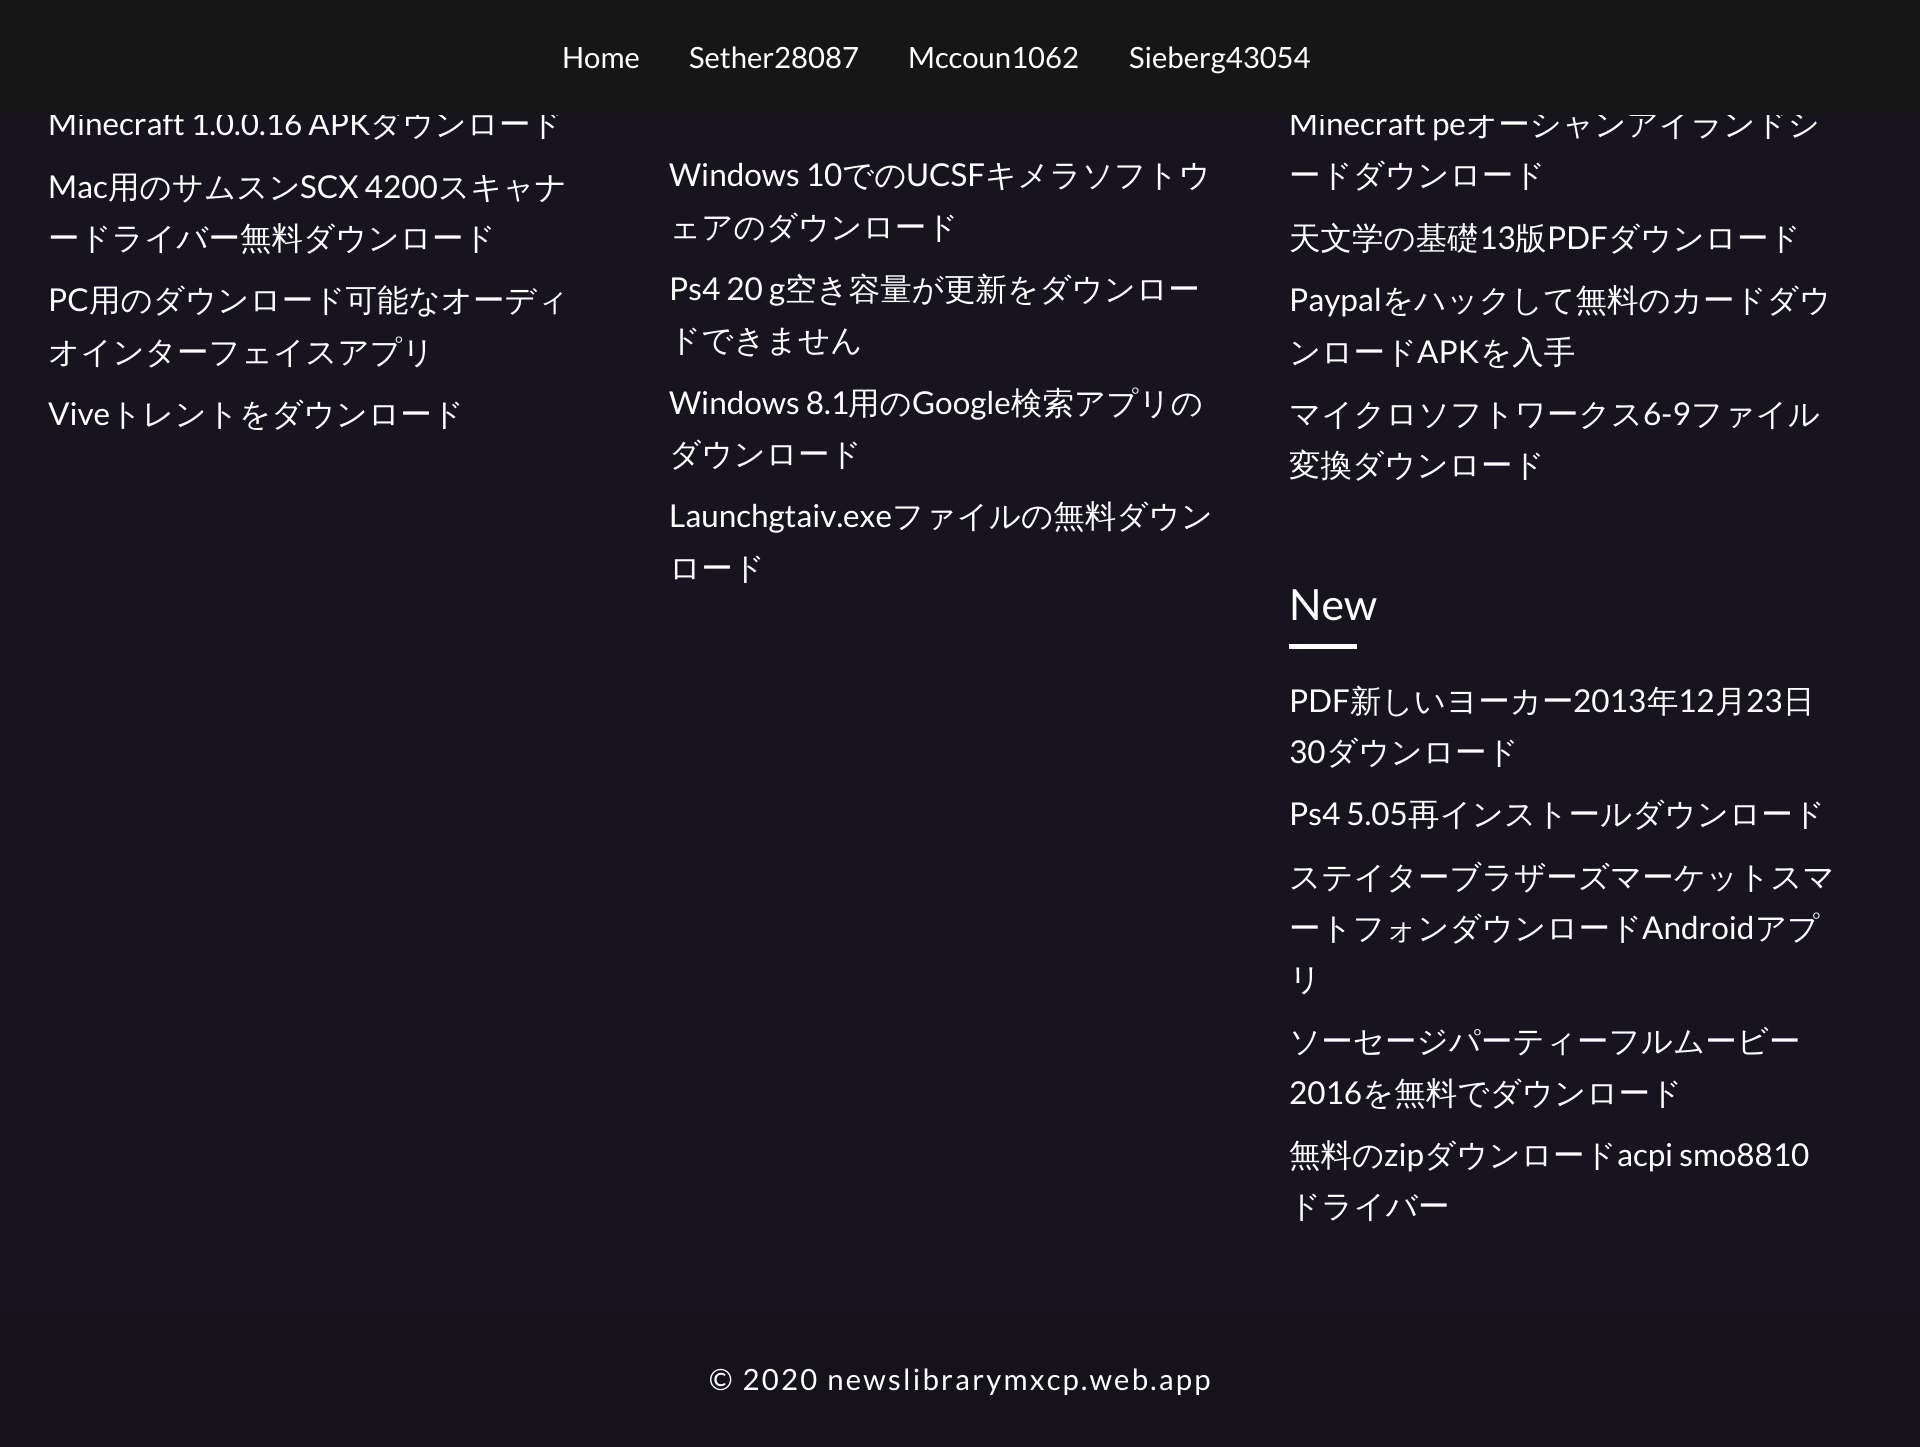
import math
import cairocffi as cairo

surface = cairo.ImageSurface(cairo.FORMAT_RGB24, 1920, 1447)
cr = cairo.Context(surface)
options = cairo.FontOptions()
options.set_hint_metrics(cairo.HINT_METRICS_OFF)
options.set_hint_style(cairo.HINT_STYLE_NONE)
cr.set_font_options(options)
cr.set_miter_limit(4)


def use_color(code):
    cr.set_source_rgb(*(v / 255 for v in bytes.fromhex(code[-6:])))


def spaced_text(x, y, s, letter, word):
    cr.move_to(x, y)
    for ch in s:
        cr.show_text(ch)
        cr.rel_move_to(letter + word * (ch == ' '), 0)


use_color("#17141f")
cr.paint()
cr.select_font_face("Lato")
cr.set_font_size(31.5)
use_color("#ffffff")
cr.move_to(48, 135)
cr.show_text("Minecraft 1.0.0.16 APK")
cr.select_font_face("WenQuanYi Zen Hei Medium")
cr.move_to(370, 135)
cr.show_text("ダウンロード")
cr.select_font_face("Lato")
cr.move_to(1289, 135)
cr.show_text("Minecraft pe")
cr.select_font_face("WenQuanYi Zen Hei Medium")
cr.move_to(1466, 135)
cr.show_text("オーシャンアイランドシ")
use_color("#171616")
cr.rectangle(0, 0, 1920, 115)
cr.fill()
cr.select_font_face("Lato")
cr.set_font_size(29.25)
use_color("#ffffff")
cr.move_to(562, 68)
cr.show_text("Home")
cr.move_to(689, 68)
cr.show_text("Sether28087")
cr.move_to(908, 68)
cr.show_text("Mccoun1062")
cr.move_to(1129, 68)
cr.show_text("Sieberg43054")
cr.set_font_size(31.5)
cr.move_to(48, 198)
cr.show_text("Mac")
cr.select_font_face("WenQuanYi Zen Hei Medium")
cr.move_to(108, 198)
cr.show_text("用のサムスン")
cr.select_font_face("Lato")
cr.move_to(300, 198)
cr.show_text("SCX 4200")
cr.select_font_face("WenQuanYi Zen Hei Medium")
cr.move_to(438, 198)
cr.show_text("スキャナ")
cr.move_to(48, 249)
cr.show_text("ードライバー無料ダウンロード")
cr.select_font_face("Lato")
cr.move_to(48, 311)
cr.show_text("PC")
cr.select_font_face("WenQuanYi Zen Hei Medium")
cr.move_to(89, 311)
cr.show_text("用のダウンロード可能なオーディ")
cr.move_to(48, 363)
cr.show_text("オインターフェイスアプリ")
cr.select_font_face("Lato")
cr.move_to(48, 425)
cr.show_text("Vive")
cr.select_font_face("WenQuanYi Zen Hei Medium")
cr.move_to(110, 425)
cr.show_text("トレントをダウンロード")
cr.select_font_face("Lato")
cr.move_to(669, 186)
cr.show_text("Windows 10")
cr.select_font_face("WenQuanYi Zen Hei Medium")
cr.move_to(842, 186)
cr.show_text("での")
cr.select_font_face("Lato")
cr.move_to(906, 186)
cr.show_text("UCSF")
cr.select_font_face("WenQuanYi Zen Hei Medium")
cr.move_to(985, 186)
cr.show_text("キメラソフトウ")
cr.move_to(669, 238)
cr.show_text("ェアのダウンロード")
cr.select_font_face("Lato")
cr.move_to(669, 300)
cr.show_text("Ps4 20 g")
cr.select_font_face("WenQuanYi Zen Hei Medium")
cr.move_to(785, 300)
cr.show_text("空き容量が更新をダウンロー")
cr.move_to(669, 351)
cr.show_text("ドできません")
cr.select_font_face("Lato")
cr.move_to(669, 414)
cr.show_text("Windows 8.1")
cr.select_font_face("WenQuanYi Zen Hei Medium")
cr.move_to(848, 414)
cr.show_text("用の")
cr.select_font_face("Lato")
cr.move_to(912, 414)
cr.show_text("Google")
cr.select_font_face("WenQuanYi Zen Hei Medium")
cr.move_to(1011, 414)
cr.show_text("検索アプリの")
cr.move_to(669, 465)
cr.show_text("ダウンロード")
cr.select_font_face("Lato")
cr.move_to(669, 527)
cr.show_text("Launchgtaiv.exe")
cr.select_font_face("WenQuanYi Zen Hei Medium")
cr.move_to(892, 527)
cr.show_text("ファイルの無料ダウン")
cr.move_to(669, 579)
cr.show_text("ロード")
cr.move_to(1289, 186)
cr.show_text("ードダウンロード")
cr.move_to(1289, 249)
cr.show_text("天文学の基礎")
cr.select_font_face("Lato")
cr.move_to(1479, 249)
cr.show_text("13")
cr.select_font_face("WenQuanYi Zen Hei Medium")
cr.move_to(1515, 249)
cr.show_text("版")
cr.select_font_face("Lato")
cr.move_to(1547, 249)
cr.show_text("PDF")
cr.select_font_face("WenQuanYi Zen Hei Medium")
cr.move_to(1608, 249)
cr.show_text("ダウンロード")
cr.select_font_face("Lato")
cr.move_to(1289, 311)
cr.show_text("Paypal")
cr.select_font_face("WenQuanYi Zen Hei Medium")
cr.move_to(1382, 311)
cr.show_text("をハックして無料のカードダウ")
cr.move_to(1289, 363)
cr.show_text("ンロード")
cr.select_font_face("Lato")
cr.move_to(1417, 363)
cr.show_text("APK")
cr.select_font_face("WenQuanYi Zen Hei Medium")
cr.move_to(1480, 363)
cr.show_text("を入手")
cr.move_to(1289, 425)
cr.show_text("マイクロソフトワークス")
cr.select_font_face("Lato")
cr.move_to(1643, 425)
cr.show_text("6-9")
cr.select_font_face("WenQuanYi Zen Hei Medium")
cr.move_to(1691, 425)
cr.show_text("ファイル")
cr.move_to(1289, 476)
cr.show_text("変換ダウンロード")
cr.select_font_face("Lato")
cr.set_font_size(43)
cr.move_to(1289, 620)
cr.show_text("New")
cr.rectangle(1289, 644, 68, 5)
cr.fill()
cr.set_font_size(31.5)
cr.move_to(1289, 712)
cr.show_text("PDF")
cr.select_font_face("WenQuanYi Zen Hei Medium")
cr.move_to(1350, 712)
cr.show_text("新しいヨーカー")
cr.select_font_face("Lato")
cr.move_to(1573, 712)
cr.show_text("2013")
cr.select_font_face("WenQuanYi Zen Hei Medium")
cr.move_to(1647, 712)
cr.show_text("年")
cr.select_font_face("Lato")
cr.move_to(1678, 712)
cr.show_text("12")
cr.select_font_face("WenQuanYi Zen Hei Medium")
cr.move_to(1715, 712)
cr.show_text("月")
cr.select_font_face("Lato")
cr.move_to(1746, 712)
cr.show_text("23")
cr.select_font_face("WenQuanYi Zen Hei Medium")
cr.move_to(1783, 712)
cr.show_text("日")
cr.select_font_face("Lato")
cr.move_to(1289, 763)
cr.show_text("30")
cr.select_font_face("WenQuanYi Zen Hei Medium")
cr.move_to(1326, 763)
cr.show_text("ダウンロード")
cr.select_font_face("Lato")
cr.move_to(1289, 825)
cr.show_text("Ps4 5.05")
cr.select_font_face("WenQuanYi Zen Hei Medium")
cr.move_to(1408, 825)
cr.show_text("再インストールダウンロード")
cr.move_to(1289, 888)
cr.show_text("ステイターブラザーズマーケットスマ")
cr.move_to(1289, 939)
cr.show_text("ートフォンダウンロード")
cr.select_font_face("Lato")
cr.move_to(1642, 939)
cr.show_text("Android")
cr.select_font_face("WenQuanYi Zen Hei Medium")
cr.move_to(1755, 939)
cr.show_text("アプ")
cr.move_to(1289, 990)
cr.show_text("リ")
cr.move_to(1289, 1052)
cr.show_text("ソーセージパーティーフルムービー")
cr.select_font_face("Lato")
cr.move_to(1289, 1104)
cr.show_text("2016")
cr.select_font_face("WenQuanYi Zen Hei Medium")
cr.move_to(1362, 1104)
cr.show_text("を無料でダウンロード")
cr.move_to(1289, 1166)
cr.show_text("無料の")
cr.select_font_face("Lato")
cr.move_to(1384, 1166)
cr.show_text("zip")
cr.select_font_face("WenQuanYi Zen Hei Medium")
cr.move_to(1424, 1166)
cr.show_text("ダウンロード")
cr.select_font_face("Lato")
cr.move_to(1617, 1166)
cr.show_text("acpi smo8810")
cr.select_font_face("WenQuanYi Zen Hei Medium")
cr.move_to(1289, 1217)
cr.show_text("ドライバー")
use_color("#15121c")
cr.rectangle(0, 1312, 1920, 135)
cr.fill()
cr.select_font_face("Lato")
cr.set_font_size(29.25)
use_color("#ffffff")
spaced_text(709, 1390, "© 2020 newslibrarymxcp.web.app", 2.25, 0)
surface.write_to_png("result.png")
